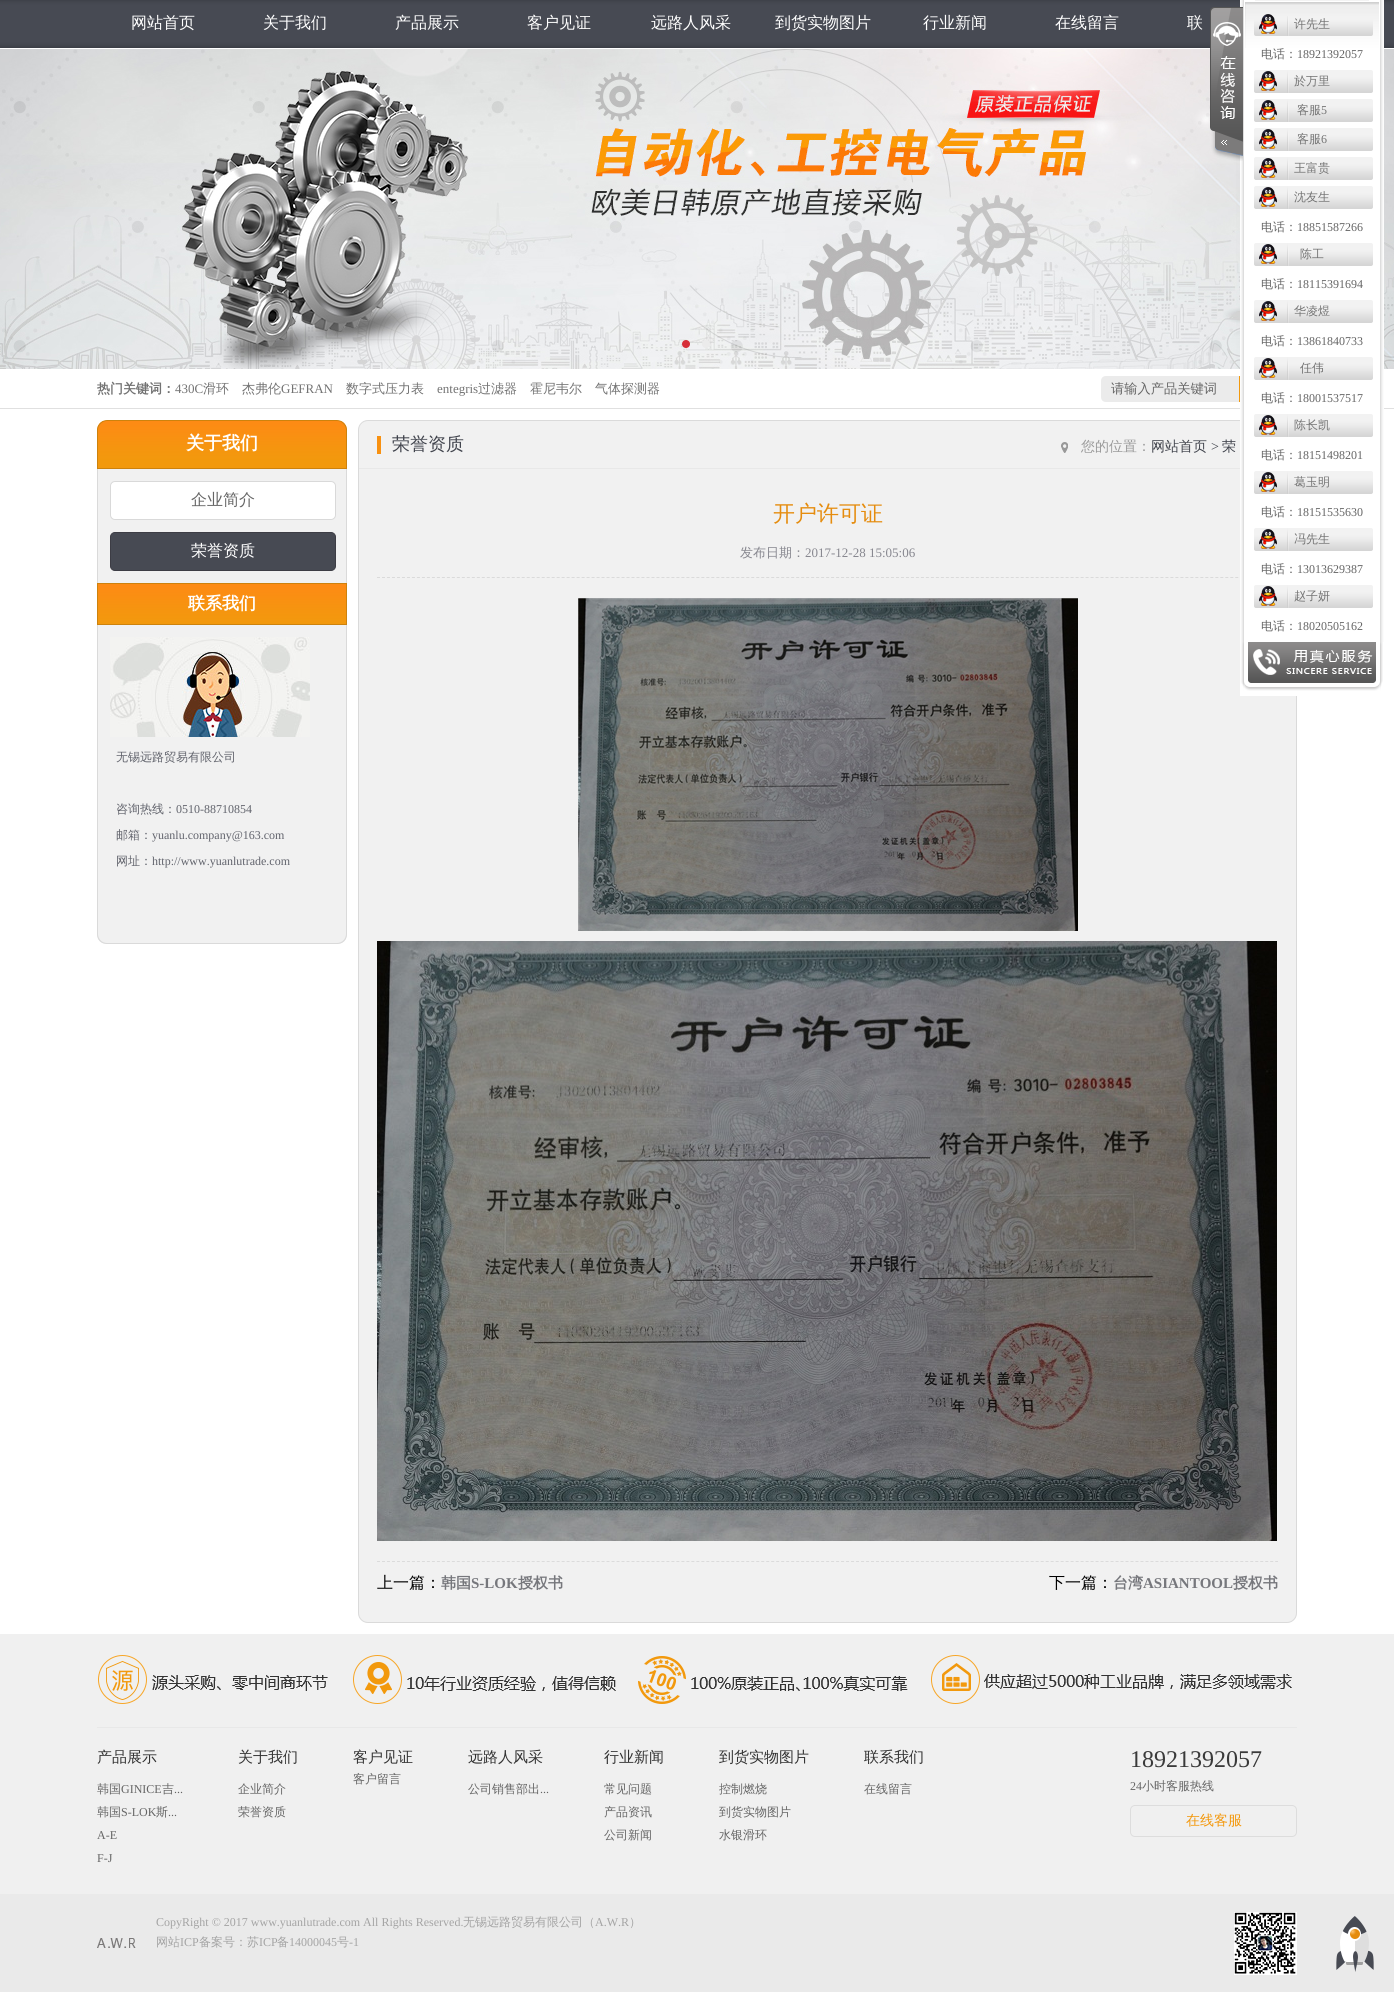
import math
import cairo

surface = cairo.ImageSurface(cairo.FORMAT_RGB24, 1394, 1992)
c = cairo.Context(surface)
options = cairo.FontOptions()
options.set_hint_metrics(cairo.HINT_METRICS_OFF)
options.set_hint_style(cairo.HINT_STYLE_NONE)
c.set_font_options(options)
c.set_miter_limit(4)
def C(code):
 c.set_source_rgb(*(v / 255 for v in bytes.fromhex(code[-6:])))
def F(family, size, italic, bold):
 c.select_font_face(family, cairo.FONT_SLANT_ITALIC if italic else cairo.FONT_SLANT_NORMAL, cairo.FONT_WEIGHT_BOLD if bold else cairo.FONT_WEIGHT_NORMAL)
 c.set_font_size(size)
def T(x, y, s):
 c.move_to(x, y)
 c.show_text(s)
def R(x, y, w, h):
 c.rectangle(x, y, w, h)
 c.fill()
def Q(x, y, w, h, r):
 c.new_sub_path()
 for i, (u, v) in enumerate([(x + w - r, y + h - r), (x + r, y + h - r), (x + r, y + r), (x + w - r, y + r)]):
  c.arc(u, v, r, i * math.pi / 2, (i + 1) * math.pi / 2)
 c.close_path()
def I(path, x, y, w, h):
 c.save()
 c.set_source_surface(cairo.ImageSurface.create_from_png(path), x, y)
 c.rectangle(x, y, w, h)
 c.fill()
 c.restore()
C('ffffff')
c.paint()
I('1.png',0,0,1394,48)
F('WenQuanYi Zen Hei Medium',16,0,0)
C('ffffff')
T(131,28,'网站首页')
T(263,28,'关于我们')
T(395,28,'产品展示')
T(527,28,'客户见证')
T(651,28,'远路人风采')
T(775,28,'到货实物图片')
T(923,28,'行业新闻')
T(1055,28,'在线留言')
T(1187,28,'联')
I('2.png',0,49,1394,320)
I('3.png',682,340,8,8)
I('4.png',702,340,8,8)
C('e0e0e0')
R(0,408,1394,1)
F('WenQuanYi Zen Hei',13,0,1)
C('737373')
T(97,393,'热门关键词：')
F('Liberation Serif',13,0,0)
T(175,393,'430C')
F('WenQuanYi Zen Hei Medium',13,0,0)
T(203,393,'滑环')
T(242,393,'杰弗伦')
F('Liberation Serif',13,0,0)
T(281,393,'GEFRAN')
F('WenQuanYi Zen Hei Medium',13,0,0)
T(346,393,'数字式压力表')
F('Liberation Serif',13,0,0)
T(437,393,'entegris')
F('WenQuanYi Zen Hei Medium',13,0,0)
T(478,393,'过滤器')
T(530,393,'霍尼韦尔')
T(595,393,'气体探测器')
C('ebebeb')
c.new_path()
c.move_to(1106,376)
c.line_to(1239,376)
c.line_to(1239,402)
c.line_to(1106,402)
c.curve_to(1103,402,1101,400,1101,397)
c.line_to(1101,381)
c.curve_to(1101,378,1103,376,1106,376)
c.close_path()
c.fill()
F('WenQuanYi Zen Hei Medium',13.25,0,0)
C('656565')
T(1111,393,'请输入产品关键词')
I('5.png',1239,376,1,26)
I('6.png',97,421,250,47)
c.new_path()
c.move_to(107,420.5)
c.line_to(337,420.5)
c.curve_to(342,420.5,346.5,425,346.5,430)
c.line_to(346.5,468.5)
c.line_to(97.5,468.5)
c.line_to(97.5,430)
c.curve_to(97.5,425,102,420.5,107,420.5)
c.close_path()
C('cd820d')
c.set_line_width(1)
c.stroke()
F('WenQuanYi Zen Hei',18,0,1)
C('ffffff')
T(186,449,'关于我们')
C('f1f1f1')
R(98,469,248,114)
C('dadada')
R(346,469,1,114)
R(97,469,1,114)
C('ffffff')
Q(110.5,481.5,225,38,4.5)
c.fill_preserve()
C('d9d9d9')
c.stroke()
F('WenQuanYi Zen Hei Medium',16,0,0)
C('656565')
T(191,505,'企业简介')
C('474a53')
Q(110.5,532.5,225,38,4.5)
c.fill_preserve()
C('3d3d45')
c.stroke()
C('ffffff')
T(191,556,'荣誉资质')
I('7.png',98,584,248,40)
c.rectangle(97.5,583.5,249,41)
C('cd820d')
c.stroke()
F('WenQuanYi Zen Hei',17,0,1)
C('ffffff')
T(188,609,'联系我们')
C('f1f1f1')
R(98,625,248,308)
C('dadada')
R(346,625,1,308)
R(97,625,1,308)
I('8.png',110,637,200,100)
F('WenQuanYi Zen Hei Medium',12,0,0)
C('61636c')
T(116,761,'无锡远路贸易有限公司')
T(116,813,'咨询热线：')
F('Liberation Serif',12,0,0)
T(176,813,'0510-88710854')
F('WenQuanYi Zen Hei Medium',12,0,0)
T(116,839,'邮箱：')
F('Liberation Serif',12,0,0)
T(152,839,'yuanlu.company@163.com')
F('WenQuanYi Zen Hei Medium',12,0,0)
T(116,865,'网址：')
F('Liberation Serif',12,0,0)
T(152,865,'http://www.yuanlutrade.com')
C('f1f1f1')
c.new_path()
c.move_to(97,933)
c.line_to(347,933)
c.line_to(347,934)
c.curve_to(347,939.5,342.5,944,337,944)
c.line_to(107,944)
c.curve_to(101.5,944,97,939.5,97,934)
c.close_path()
c.fill()
C('dadada')
c.set_fill_rule(cairo.FILL_RULE_EVEN_ODD)
c.new_path()
c.move_to(97,933)
c.line_to(347,933)
c.line_to(347,934)
c.curve_to(347,940,343,944,337,944)
c.line_to(107,944)
c.curve_to(101,944,97,940,97,934)
c.close_path()
c.move_to(98,933)
c.line_to(346,933)
c.line_to(346,934)
c.curve_to(346,939,342,943,337,943)
c.line_to(107,943)
c.curve_to(102,943,98,939,98,934)
c.close_path()
c.fill()
C('f1f1f1')
Q(358.5,420.5,938,1202,9.5)
c.fill_preserve()
C('dadada')
c.stroke()
C('e8e8e8')
R(359,468,881,1)
C('f89111')
R(377,436,4,18)
F('WenQuanYi Zen Hei Medium',18,0,0)
C('41444d')
T(392,450,'荣誉资质')
I('9.png',1061,442,7,11)
F('WenQuanYi Zen Hei Medium',14,0,0)
C('9a9a9a')
T(1081,451,'您的位置：')
C('41444d')
T(1151,451,'网站首页')
F('Liberation Serif',14,0,0)
T(1211,451,'>')
F('WenQuanYi Zen Hei Medium',14,0,0)
T(1222,451,'荣')
F('WenQuanYi Zen Hei Medium',22,0,0)
C('e58c0e')
T(773,521,'开户许可证')
c.new_path()
c.move_to(377,577.5)
c.line_to(1278,577.5)
C('dadada')
c.set_dash([3,1.99])
c.stroke()
F('WenQuanYi Zen Hei Medium',13,0,0)
C('87878f')
T(740,557,'发布日期：')
F('Liberation Serif',13,0,0)
T(805,557,'2017-12-28 15:05:06')
I('10.png',578,598,500,333)
I('11.png',377,941,900,600)
c.new_path()
c.move_to(377,1561.5)
c.line_to(1278,1561.5)
C('dbdbdb')
c.stroke()
F('WenQuanYi Zen Hei Medium',16,0,0)
C('000000')
T(377,1588,'上一篇：')
F('WenQuanYi Zen Hei',15,0,1)
C('76777c')
T(441,1588,'韩国')
F('Liberation Serif',15,0,1)
T(471,1588,'S-LOK')
F('WenQuanYi Zen Hei',15,0,1)
T(518,1588,'授权书')
F('WenQuanYi Zen Hei Medium',16,0,0)
C('000000')
T(1049,1588,'下一篇：')
F('WenQuanYi Zen Hei',15,0,1)
C('76777c')
T(1113,1588,'台湾')
F('Liberation Serif',15,0,1)
T(1143,1588,'ASIANTOOL')
F('WenQuanYi Zen Hei',15,0,1)
T(1233,1588,'授权书')
C('f0f0f0')
R(0,1634,1394,260)
C('e8e8e8')
R(97,1727,1200,1)
I('12.png',98,1655,1194,49)
F('WenQuanYi Zen Hei Medium',15,0,0)
C('323232')
T(97,1762,'产品展示')
F('WenQuanYi Zen Hei Medium',12,0,0)
C('656565')
T(97,1793,'韩国')
F('Liberation Serif',12,0,0)
T(121,1793,'GINICE')
F('WenQuanYi Zen Hei Medium',12,0,0)
T(162,1793,'吉')
F('Liberation Serif',12,0,0)
T(174,1793,'...')
F('WenQuanYi Zen Hei Medium',12,0,0)
T(97,1816,'韩国')
F('Liberation Serif',12,0,0)
T(121,1816,'S-LOK')
F('WenQuanYi Zen Hei Medium',12,0,0)
T(156,1816,'斯')
F('Liberation Serif',12,0,0)
T(168,1816,'...')
T(97,1839,'A-E')
T(97,1862,'F-J')
F('WenQuanYi Zen Hei Medium',15,0,0)
C('323232')
T(238,1762,'关于我们')
F('WenQuanYi Zen Hei Medium',12,0,0)
C('656565')
T(238,1793,'企业简介')
T(238,1816,'荣誉资质')
F('WenQuanYi Zen Hei Medium',15,0,0)
C('323232')
T(353,1762,'客户见证')
F('WenQuanYi Zen Hei Medium',12,0,0)
C('656565')
T(353,1783,'客户留言')
F('WenQuanYi Zen Hei Medium',15,0,0)
C('323232')
T(468,1762,'远路人风采')
F('WenQuanYi Zen Hei Medium',12,0,0)
C('656565')
T(468,1793,'公司销售部出')
F('Liberation Serif',12,0,0)
T(540,1793,'...')
F('WenQuanYi Zen Hei Medium',15,0,0)
C('323232')
T(604,1762,'行业新闻')
F('WenQuanYi Zen Hei Medium',12,0,0)
C('656565')
T(604,1793,'常见问题')
T(604,1816,'产品资讯')
T(604,1839,'公司新闻')
F('WenQuanYi Zen Hei Medium',15,0,0)
C('323232')
T(719,1762,'到货实物图片')
F('WenQuanYi Zen Hei Medium',12,0,0)
C('656565')
T(719,1793,'控制燃烧')
T(719,1816,'到货实物图片')
T(719,1839,'水银滑环')
F('WenQuanYi Zen Hei Medium',15,0,0)
C('323232')
T(864,1762,'联系我们')
F('WenQuanYi Zen Hei Medium',12,0,0)
C('656565')
T(864,1793,'在线留言')
F('Liberation Serif',24,0,0)
C('3a3a3a')
T(1130,1767,'18921392057')
F('Liberation Serif',12,0,0)
C('656565')
T(1130,1790,'24')
F('WenQuanYi Zen Hei Medium',12,0,0)
T(1142,1790,'小时客服热线')
Q(1130.5,1805.5,166,31,4.5)
C('dddddd')
c.set_dash([])
c.stroke()
F('WenQuanYi Zen Hei Medium',14,0,0)
C('f3980c')
T(1186,1825,'在线客服')
C('eaeaea')
R(0,1894,1394,98)
I('13.png',97,1938,39,10)
F('Liberation Serif',12,0,0)
C('a4a4a4')
T(156,1926,'CopyRight © 2017 www.yuanlutrade.com All Rights Reserved.')
F('WenQuanYi Zen Hei Medium',12,0,0)
T(463,1926,'无锡远路贸易有限公司（')
F('Liberation Serif',12,0,0)
T(595,1926,'A.W.R')
F('WenQuanYi Zen Hei Medium',12,0,0)
T(629,1926,'）')
T(156,1946,'网站')
F('Liberation Serif',12,0,0)
T(180,1946,'ICP')
F('WenQuanYi Zen Hei Medium',12,0,0)
T(199,1946,'备案号：苏')
F('Liberation Serif',12,0,0)
T(259,1946,'ICP')
F('WenQuanYi Zen Hei Medium',12,0,0)
T(277,1946,'备')
F('Liberation Serif',12,0,0)
T(289,1946,'14000045')
F('WenQuanYi Zen Hei Medium',12,0,0)
T(337,1946,'号')
F('Liberation Serif',12,0,0)
T(349,1946,'-1')
I('14.png',1234,1912,63,63)
I('16.png',1240,0,144,642)
I('15.png',1210,7,33,154)
C('f3f3f3')
R(1255,0,114,1)
I('17.png',1245,2,134,46)
I('19.png',1254,16,119,20)
I('18.png',1259,14,18,20)
F('WenQuanYi Zen Hei Medium',12,0,0)
C('737373')
T(1294,28,'许先生')
C('656565')
T(1261,58,'电话：')
F('Liberation Serif',12,0,0)
T(1297,58,'18921392057')
I('21.png',1254,70,119,23)
I('20.png',1259,71,18,20)
F('WenQuanYi Zen Hei Medium',12,0,0)
C('737373')
T(1294,85,'於万里')
I('21.png',1254,99,119,23)
I('20.png',1259,100,18,20)
T(1297,114,'客服')
F('Liberation Serif',12,0,0)
T(1321,114,'5')
I('21.png',1254,128,119,23)
I('20.png',1259,129,18,20)
F('WenQuanYi Zen Hei Medium',12,0,0)
T(1297,143,'客服')
F('Liberation Serif',12,0,0)
T(1321,143,'6')
I('21.png',1254,157,119,23)
I('20.png',1259,158,18,20)
F('WenQuanYi Zen Hei Medium',12,0,0)
T(1294,172,'王富贵')
I('21.png',1254,186,119,23)
I('20.png',1259,187,18,20)
T(1294,201,'沈友生')
C('656565')
T(1261,231,'电话：')
F('Liberation Serif',12,0,0)
T(1297,231,'18851587266')
I('21.png',1254,243,119,23)
I('20.png',1259,244,18,20)
F('WenQuanYi Zen Hei Medium',12,0,0)
C('737373')
T(1300,258,'陈工')
C('656565')
T(1261,288,'电话：')
F('Liberation Serif',12,0,0)
T(1297,288,'18115391694')
I('21.png',1254,300,119,23)
I('20.png',1259,301,18,20)
F('WenQuanYi Zen Hei Medium',12,0,0)
C('737373')
T(1294,315,'华凌煜')
C('656565')
T(1261,345,'电话：')
F('Liberation Serif',12,0,0)
T(1297,345,'13861840733')
I('21.png',1254,357,119,23)
I('20.png',1259,358,18,20)
F('WenQuanYi Zen Hei Medium',12,0,0)
C('737373')
T(1300,372,'任伟')
C('656565')
T(1261,402,'电话：')
F('Liberation Serif',12,0,0)
T(1297,402,'18001537517')
I('21.png',1254,414,119,23)
I('20.png',1259,415,18,20)
F('WenQuanYi Zen Hei Medium',12,0,0)
C('737373')
T(1294,429,'陈长凯')
C('656565')
T(1261,459,'电话：')
F('Liberation Serif',12,0,0)
T(1297,459,'18151498201')
I('21.png',1254,471,119,23)
I('20.png',1259,472,18,20)
F('WenQuanYi Zen Hei Medium',12,0,0)
C('737373')
T(1294,486,'葛玉明')
C('656565')
T(1261,516,'电话：')
F('Liberation Serif',12,0,0)
T(1297,516,'18151535630')
I('21.png',1254,528,119,23)
I('20.png',1259,529,18,20)
F('WenQuanYi Zen Hei Medium',12,0,0)
C('737373')
T(1294,543,'冯先生')
C('656565')
T(1261,573,'电话：')
F('Liberation Serif',12,0,0)
T(1297,573,'13013629387')
I('21.png',1254,585,119,23)
I('20.png',1259,586,18,20)
F('WenQuanYi Zen Hei Medium',12,0,0)
C('737373')
T(1294,600,'赵子妍')
C('656565')
T(1261,630,'电话：')
F('Liberation Serif',12,0,0)
T(1297,630,'18020505162')
I('22.png',1240,642,143,54)
I('23.png',1336,1916,38,56)
surface.write_to_png('o.png')
